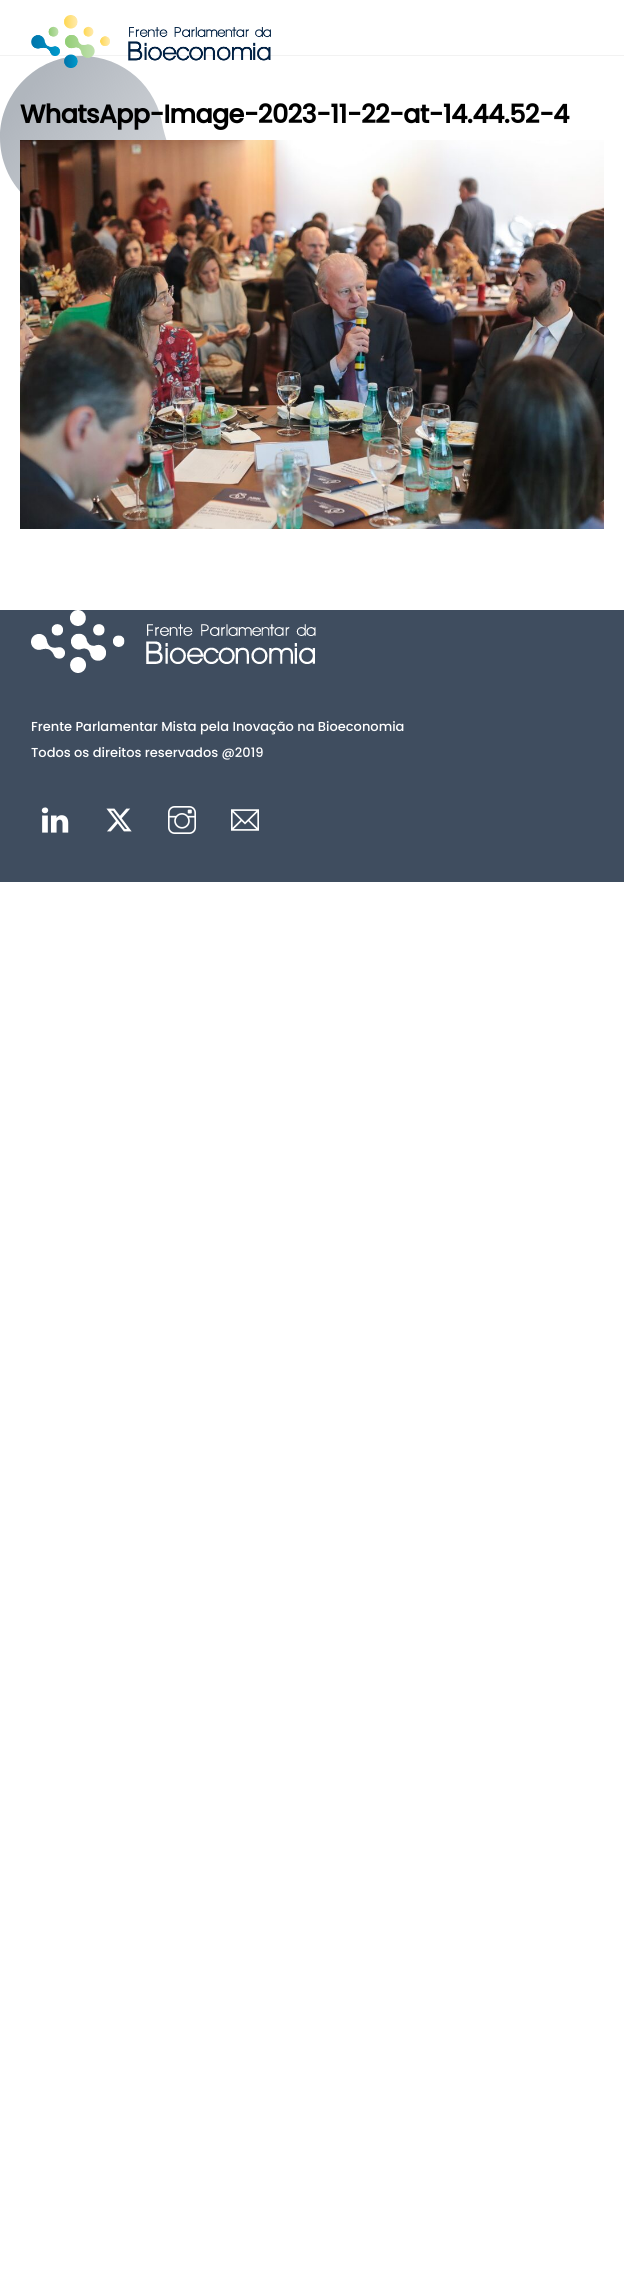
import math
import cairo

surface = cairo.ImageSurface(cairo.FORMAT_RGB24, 624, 2272)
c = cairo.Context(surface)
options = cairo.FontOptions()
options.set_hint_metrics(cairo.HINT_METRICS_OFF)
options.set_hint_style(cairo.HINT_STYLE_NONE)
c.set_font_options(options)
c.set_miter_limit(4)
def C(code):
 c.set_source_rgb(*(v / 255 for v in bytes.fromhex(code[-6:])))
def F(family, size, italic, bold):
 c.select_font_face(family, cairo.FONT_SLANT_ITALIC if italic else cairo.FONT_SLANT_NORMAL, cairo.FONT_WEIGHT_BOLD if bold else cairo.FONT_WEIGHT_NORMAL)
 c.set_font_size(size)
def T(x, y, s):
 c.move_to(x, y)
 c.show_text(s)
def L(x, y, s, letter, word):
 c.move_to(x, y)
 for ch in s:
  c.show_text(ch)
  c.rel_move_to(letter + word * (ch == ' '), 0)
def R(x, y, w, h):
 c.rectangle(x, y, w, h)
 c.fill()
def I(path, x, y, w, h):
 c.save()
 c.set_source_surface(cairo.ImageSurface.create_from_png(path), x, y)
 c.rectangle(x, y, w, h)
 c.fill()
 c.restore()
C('ffffff')
c.paint()
C('f2f2f2')
R(0,55,624,1)
I('2.png',0,56,167,136)
I('1.png',31,15,240,53)
F('Poppins',25.6,0,1)
C('000000')
L(20,123,'WhatsApp-Image-2023-11-22-at-14.44.52-4',-.75,0)
I('3.png',20,140,584,389)
C('3f4d5f')
R(0,610,624,272)
I('4.png',31,610,285,63)
F('Poppins Medium',13,0,0)
C('ffffff')
T(31,731,'Frente Parlamentar Mista pela Inovação na Bioeconomia')
T(31,757,'Todos os direitos reservados @2019')
I('5.png',41,807,28,26)
I('6.png',106,808,26,24)
I('7.png',168,806,28,28)
I('8.png',231,809,28,22)
surface.write_to_png('o.png')
